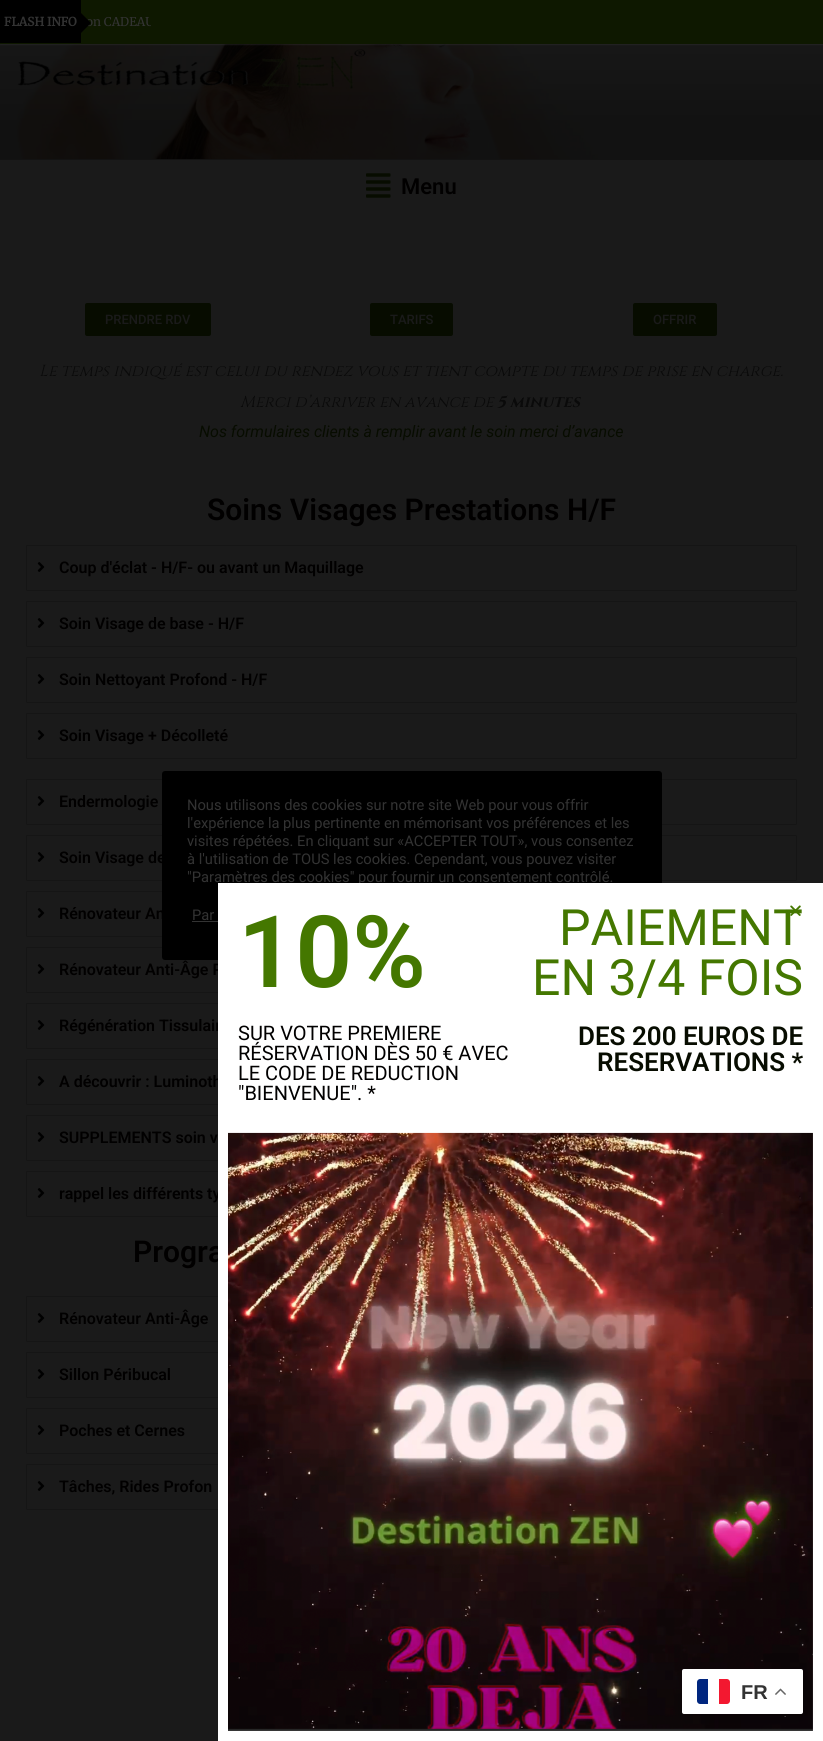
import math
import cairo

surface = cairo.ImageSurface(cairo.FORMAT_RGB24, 823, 1741)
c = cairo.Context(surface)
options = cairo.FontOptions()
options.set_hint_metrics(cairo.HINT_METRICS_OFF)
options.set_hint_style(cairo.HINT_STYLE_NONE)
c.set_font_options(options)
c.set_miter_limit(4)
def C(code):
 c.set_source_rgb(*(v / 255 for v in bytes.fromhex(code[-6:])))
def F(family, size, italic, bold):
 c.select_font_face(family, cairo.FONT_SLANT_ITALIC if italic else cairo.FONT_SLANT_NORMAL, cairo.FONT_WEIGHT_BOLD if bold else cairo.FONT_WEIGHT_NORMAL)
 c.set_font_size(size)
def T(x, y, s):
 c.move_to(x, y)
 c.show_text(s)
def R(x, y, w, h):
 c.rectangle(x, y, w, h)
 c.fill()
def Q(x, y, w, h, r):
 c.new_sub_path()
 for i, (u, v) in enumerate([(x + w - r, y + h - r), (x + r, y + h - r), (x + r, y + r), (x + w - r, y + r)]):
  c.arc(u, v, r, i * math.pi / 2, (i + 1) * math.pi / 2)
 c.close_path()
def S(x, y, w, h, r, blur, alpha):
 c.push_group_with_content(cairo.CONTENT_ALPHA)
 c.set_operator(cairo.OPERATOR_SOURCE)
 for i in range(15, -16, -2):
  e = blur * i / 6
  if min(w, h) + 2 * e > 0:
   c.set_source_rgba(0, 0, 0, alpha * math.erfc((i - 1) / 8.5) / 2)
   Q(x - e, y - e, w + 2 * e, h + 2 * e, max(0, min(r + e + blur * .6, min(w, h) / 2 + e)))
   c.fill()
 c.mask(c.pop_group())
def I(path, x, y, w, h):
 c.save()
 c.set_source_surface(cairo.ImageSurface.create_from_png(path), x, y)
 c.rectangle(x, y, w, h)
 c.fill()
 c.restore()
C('1a1a1a')
c.paint()
I('1.png',0,44,598,115)
gradient = cairo.LinearGradient(412,0,412,160)
gradient.add_color_stop_rgba(0,0,0,0,0)
gradient.add_color_stop_rgba(.75,0,0,0,.3)
gradient.add_color_stop_rgba(1,0,0,0,.3)
c.set_source(gradient)
R(0,44,823,116)
C('333333')
S(0,0,823,44,0,1,1)
C('0e1800')
R(0,0,823,44)
C('000000')
R(0,0,81,43)
F('Merriweather',12,0,1)
C('333333')
T(4,26,'FLASH INFO')
F('Merriweather Light',12,0,0)
T(86,26,'on CADEAU')
C('000000')
c.new_path()
c.move_to(81,33)
c.line_to(81,13)
c.line_to(91,23)
c.close_path()
c.fill()
C('0e1800')
R(151,17,3,9)
I('2.png',17,49,349,40)
I('3.png',366,173,25,25)
F('Roboto SemiBold',22,0,0)
C('010000')
T(401,194,'Menu')
C('070c00')
Q(85,303,126,33,2)
c.fill()
F('Roboto Medium',13,0,0)
C('1a1a1a')
T(105,324,'PRENDRE RDV')
C('070c00')
Q(370,303,83,33,2)
c.fill()
C('1a1a1a')
T(390,324,'TARIFS')
C('070c00')
Q(633,303,84,33,2)
c.fill()
C('1a1a1a')
T(653,324,'OFFRIR')
F('Cinzel',16,1,0)
C('0a0a0a')
T(39,376,'Le temps indiqué est celui du rendez vous et tient compte du temps de prise en charge.')
T(240,407,'Merci d’arriver en avance de')
F('Cinzel',16,1,1)
T(497,407,'5 minutes')
F('Roboto',16,1,0)
C('070c00')
T(199,437,'Nos formulaires clients à remplir avant le soin merci d’avance')
F('Roboto SemiBold',30,0,0)
C('010000')
T(207,520,'Soins Visages Prestations H/F')
Q(26.5,545.5,770,45,.5)
C('151515')
c.set_line_width(1)
c.stroke()
I('4.png',37,562,8,10)
F('Roboto SemiBold',16,0,0)
C('010000')
T(59,573,'Coup d\'éclat - H/F- ou avant un Maquillage')
Q(26.5,601.5,770,45,.5)
C('151515')
c.stroke()
I('4.png',37,618,8,10)
C('010000')
T(59,629,'Soin Visage de base - H/F')
Q(26.5,657.5,770,45,.5)
C('151515')
c.stroke()
I('4.png',37,674,8,10)
C('010000')
T(59,685,'Soin Nettoyant Profond - H/F')
Q(26.5,713.5,770,45,.5)
C('151515')
c.stroke()
I('4.png',37,730,8,10)
C('010000')
T(59,741,'Soin Visage + Décolleté')
Q(26.5,779.5,770,45,.5)
C('151515')
c.stroke()
I('4.png',37,796,8,10)
C('010000')
T(59,807,'Endermologie')
Q(26.5,835.5,770,45,.5)
C('151515')
c.stroke()
I('4.png',37,852,8,10)
C('010000')
T(59,863,'Soin Visage de')
Q(26.5,891.5,770,45,.5)
C('151515')
c.stroke()
I('4.png',37,908,8,10)
C('010000')
T(59,919,'Rénovateur An')
Q(26.5,947.5,770,45,.5)
C('151515')
c.stroke()
I('4.png',37,964,8,10)
C('010000')
T(59,975,'Rénovateur Anti-Âge P')
Q(26.5,1003.5,770,45,.5)
C('151515')
c.stroke()
I('4.png',37,1020,8,10)
C('010000')
T(59,1031,'Régénération Tissulair')
Q(26.5,1059.5,770,45,.5)
C('151515')
c.stroke()
I('4.png',37,1076,8,10)
C('010000')
T(59,1087,'A découvrir : Luminoth')
Q(26.5,1115.5,770,45,.5)
C('151515')
c.stroke()
I('4.png',37,1132,8,10)
C('010000')
T(59,1143,'SUPPLEMENTS soin v')
Q(26.5,1171.5,770,45,.5)
C('151515')
c.stroke()
I('4.png',37,1188,8,10)
C('010000')
T(59,1199,'rappel les différents ty')
F('Roboto SemiBold',30,0,0)
T(133,1262,'Progra')
Q(26.5,1296.5,770,45,.5)
C('151515')
c.stroke()
I('4.png',37,1313,8,10)
F('Roboto SemiBold',16,0,0)
C('010000')
T(59,1324,'Rénovateur Anti-Âge')
Q(26.5,1352.5,770,45,.5)
C('151515')
c.stroke()
I('4.png',37,1369,8,10)
C('010000')
T(59,1380,'Sillon Péribucal')
Q(26.5,1408.5,770,45,.5)
C('151515')
c.stroke()
I('4.png',37,1425,8,10)
C('010000')
T(59,1436,'Poches et Cernes')
Q(26.5,1464.5,770,45,.5)
C('151515')
c.stroke()
I('4.png',37,1481,8,10)
C('010000')
T(59,1492,'Tâches, Rides Profon')
C('000000')
Q(162,771,500,189,3)
c.fill()
F('Roboto',14.7,0,0)
C('333333')
T(187,810,'Nous utilisons des cookies sur notre site Web pour vous offrir')
T(187,828,'l\'expérience la plus pertinente en mémorisant vos préférences et les')
T(187,846,'visites répétées. En cliquant sur «ACCEPTER TOUT», vous consentez')
T(187,864,'à l\'utilisation de TOUS les cookies. Cependant, vous pouvez visiter')
T(187,882,'"Paramètres des cookies" pour fournir un consentement contrôlé.')
T(192,920,'Par')
R(192,921,26,1)
C('ffffff')
R(218,883,605,858)
F('Roboto',50,0,0)
C('447700')
T(559,945,'PAIEMENT')
I('5.png',790,905,11,11)
F('Roboto SemiBold',100,0,0)
T(238,987,'10%')
F('Roboto',20,0,0)
C('010000')
T(238,1040,'SUR VOTRE PREMIERE')
T(238,1060,'RÉSERVATION DÈS 50 € AVEC')
T(238,1080,'LE CODE DE REDUCTION')
T(238,1100,'"BIENVENUE". *')
F('Roboto',50,0,0)
C('447700')
T(532,995,'EN 3/4 FOIS')
F('Roboto SemiBold',26,0,0)
C('070c00')
T(578,1045,'DES 200 EUROS DE')
T(597,1071,'RESERVATIONS *')
I('6.png',228,1132,585,599)
C('000000')
S(682,1674,121,45,2,7.5,.15)
C('ffffff')
Q(682,1669,121,45,2)
c.fill()
C('00267f')
c.new_path()
c.move_to(700,1679)
c.line_to(708,1679)
c.line_to(708,1704)
c.line_to(700,1704)
c.curve_to(698.5,1704,697,1702.5,697,1701)
c.line_to(697,1682)
c.curve_to(697,1680.5,698.5,1679,700,1679)
c.close_path()
c.fill()
C('f31830')
c.new_path()
c.move_to(719,1679)
c.line_to(727,1679)
c.curve_to(728.5,1679,730,1680.5,730,1682)
c.line_to(730,1701)
c.curve_to(730,1702.5,728.5,1704,727,1704)
c.line_to(719,1704)
c.close_path()
c.fill()
F('Liberation Sans',20,0,1)
C('333333')
T(741,1699,'FR')
I('7.png',775,1688,11,7)
surface.write_to_png('o.png')
